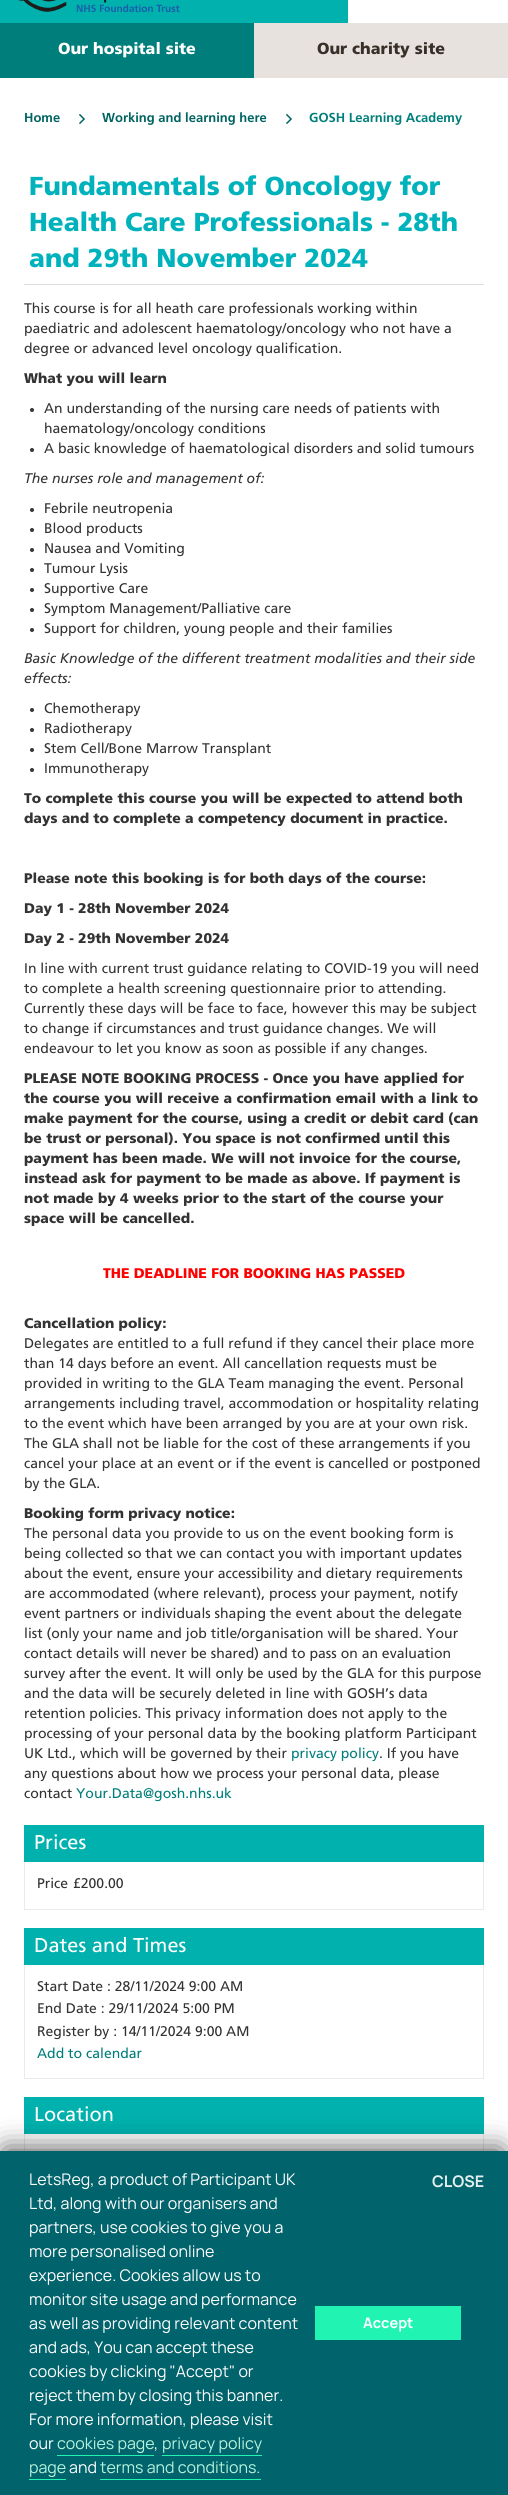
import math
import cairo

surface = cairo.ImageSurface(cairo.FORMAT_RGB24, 508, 2495)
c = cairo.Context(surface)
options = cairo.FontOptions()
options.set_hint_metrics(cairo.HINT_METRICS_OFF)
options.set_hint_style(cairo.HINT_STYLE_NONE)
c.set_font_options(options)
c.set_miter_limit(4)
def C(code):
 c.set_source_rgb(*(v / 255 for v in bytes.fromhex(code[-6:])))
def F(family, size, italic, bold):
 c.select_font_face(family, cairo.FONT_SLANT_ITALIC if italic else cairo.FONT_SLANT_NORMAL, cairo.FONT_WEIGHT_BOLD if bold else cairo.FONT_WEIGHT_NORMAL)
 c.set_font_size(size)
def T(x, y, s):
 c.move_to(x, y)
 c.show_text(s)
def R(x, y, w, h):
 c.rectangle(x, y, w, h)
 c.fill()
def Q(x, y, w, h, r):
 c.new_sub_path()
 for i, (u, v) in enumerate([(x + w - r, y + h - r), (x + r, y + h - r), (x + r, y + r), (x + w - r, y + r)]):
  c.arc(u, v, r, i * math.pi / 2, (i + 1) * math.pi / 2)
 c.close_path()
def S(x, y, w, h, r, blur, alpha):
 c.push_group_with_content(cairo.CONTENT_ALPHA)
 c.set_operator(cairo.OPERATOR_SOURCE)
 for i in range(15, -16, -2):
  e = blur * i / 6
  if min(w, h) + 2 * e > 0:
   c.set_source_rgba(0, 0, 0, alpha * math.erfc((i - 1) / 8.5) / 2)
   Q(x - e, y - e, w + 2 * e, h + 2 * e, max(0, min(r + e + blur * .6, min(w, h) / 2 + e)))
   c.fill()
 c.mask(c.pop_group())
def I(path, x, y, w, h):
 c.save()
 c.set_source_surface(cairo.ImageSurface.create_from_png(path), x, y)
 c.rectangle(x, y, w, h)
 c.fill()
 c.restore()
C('00b1ad')
c.paint()
I('1.png',18,0,162,12)
C('ffffff')
R(348,0,160,23)
C('007e7b')
R(0,23,254,55)
F('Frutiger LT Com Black',16,0,0)
C('ffffff')
T(58,54,'Our hospital site')
C('e7e2de')
R(254,23,254,55)
C('382f28')
T(317,54,'Our charity site')
C('ffffff')
R(0,78,508,2073)
F('Frutiger LT Com',13,0,1)
C('006462')
T(24,122,'Home')
I('2.png',79,113,6,11)
T(102,122,'Working and learning here')
I('2.png',286,113,6,11)
C('007e7b')
T(309,122,'GOSH Learning Academy')
C('e2dddb')
R(24,284,460,1)
F('Frutiger LT Com Black',26,0,0)
C('00b2bb')
T(29,195,'Fundamentals of Oncology for')
T(29,231,'Health Care Professionals - 28th')
T(29,267,'and 29th November 2024')
F('Frutiger LT Com',14,0,0)
C('333333')
T(24,313,'This course is for all heath care professionals working within')
T(24,333,'paediatric and adolescent haematology/oncology who not have a')
T(24,353,'degree or advanced level oncology qualification.')
F('Frutiger LT Com Black',14,0,0)
T(24,383,'What you will learn')
c.new_path()
c.arc(32,410,2,0,2 * math.pi)
c.fill()
F('Frutiger LT Com',14,0,0)
T(44,413,'An understanding of the nursing care needs of patients with')
T(44,433,'haematology/oncology conditions')
c.new_path()
c.arc(32,450,2,0,2 * math.pi)
c.fill()
T(44,453,'A basic knowledge of haematological disorders and solid tumours')
F('Frutiger LT Com',14,1,0)
T(24,483,'The nurses role and management of:')
c.new_path()
c.arc(32,510,2,0,2 * math.pi)
c.fill()
F('Frutiger LT Com',14,0,0)
T(44,513,'Febrile neutropenia')
c.new_path()
c.arc(32,530,2,0,2 * math.pi)
c.fill()
T(44,533,'Blood products')
c.new_path()
c.arc(32,550,2,0,2 * math.pi)
c.fill()
T(44,553,'Nausea and Vomiting')
c.new_path()
c.arc(32,570,2,0,2 * math.pi)
c.fill()
T(44,573,'Tumour Lysis')
c.new_path()
c.arc(32,590,2,0,2 * math.pi)
c.fill()
T(44,593,'Supportive Care')
c.new_path()
c.arc(32,610,2,0,2 * math.pi)
c.fill()
T(44,613,'Symptom Management/Palliative care')
c.new_path()
c.arc(32,630,2,0,2 * math.pi)
c.fill()
T(44,633,'Support for children, young people and their families')
F('Frutiger LT Com',14,1,0)
T(24,663,'Basic Knowledge of the different treatment modalities and their side')
T(24,683,'effects:')
c.new_path()
c.arc(32,710,2,0,2 * math.pi)
c.fill()
F('Frutiger LT Com',14,0,0)
T(44,713,'Chemotherapy')
c.new_path()
c.arc(32,730,2,0,2 * math.pi)
c.fill()
T(44,733,'Radiotherapy')
c.new_path()
c.arc(32,750,2,0,2 * math.pi)
c.fill()
T(44,753,'Stem Cell/Bone Marrow Transplant')
c.new_path()
c.arc(32,770,2,0,2 * math.pi)
c.fill()
T(44,773,'Immunotherapy')
F('Frutiger LT Com Black',14,0,0)
T(24,803,'To complete this course you will be expected to attend both')
T(24,823,'days and to complete a competency document in practice.')
T(24,883,'Please note this booking is for both days of the course:')
T(24,913,'Day 1 - 28th November 2024')
T(24,943,'Day 2 - 29th November 2024')
F('Frutiger LT Com',14,0,0)
T(24,973,'In line with current trust guidance relating to COVID-19 you will need')
T(24,993,'to complete a health screening questionnaire prior to attending.')
T(24,1013,'Currently these days will be face to face, however this may be subject')
T(24,1033,'to change if circumstances and trust guidance changes. We will')
T(24,1053,'endeavour to let you know as soon as possible if any changes.')
F('Frutiger LT Com Black',14,0,0)
T(24,1083,'PLEASE NOTE BOOKING PROCESS - Once you have applied for')
T(24,1103,'the course you will receive a confirmation email with a link to')
T(24,1123,'make payment for the course, using a credit or debit card (can')
T(24,1143,'be trust or personal). You space is not confirmed until this')
T(24,1163,'payment has been made. We will not invoice for the course,')
T(24,1183,'instead ask for payment to be made as above. If payment is')
T(24,1203,'not made by 4 weeks prior to the start of the course your')
T(24,1223,'space will be cancelled.')
C('ff0000')
T(103,1278,'THE DEADLINE FOR BOOKING HAS PASSED')
C('333333')
T(24,1328,'Cancellation policy:')
F('Frutiger LT Com',14,0,0)
T(24,1348,'Delegates are entitled to')
T(191,1348,'a full refund if they cancel their place more')
T(24,1368,'than 14 days before an event. All cancellation requests must be')
T(24,1388,'provided in writing to the GLA Team managing the event. Personal')
T(24,1408,'arrangements including travel, accommodation or hospitality relating')
T(24,1428,'to the event which have been arranged by you are at your own risk.')
T(24,1448,'The GLA shall not be liable for the cost of these arrangements if you')
T(24,1468,'cancel your place at an event or if the event is cancelled or postponed')
T(24,1488,'by the GLA.')
F('Frutiger LT Com Black',14,0,0)
T(24,1518,'Booking form privacy notice:')
F('Frutiger LT Com',14,0,0)
T(24,1538,'The personal data you provide to us on the event booking form is')
T(24,1558,'being collected so that we can contact you with important updates')
T(24,1578,'about the event, ensure your accessibility and dietary requirements')
T(24,1598,'are accommodated (where relevant), process your payment, notify')
T(24,1618,'event partners or individuals shaping the event about the delegate')
T(24,1638,'list (only your name and job title/organisation will be shared. Your')
T(24,1658,'contact details will never be shared) and to pass on an evaluation')
T(24,1678,'survey after the event. It will only be used by the GLA for this purpose')
T(24,1698,'and the data will be securely deleted in line with GOSH’s data')
T(24,1718,'retention policies. This privacy information does not apply to the')
T(24,1738,'processing of your personal data by the booking platform Participant')
T(24,1758,'UK Ltd., which will be governed by their')
C('007e7b')
T(291,1758,'privacy policy')
C('333333')
T(379,1758,'. If you have')
T(24,1778,'any questions about how we process your personal data, please')
T(24,1798,'contact')
C('007e7b')
T(76,1798,'Your.Data@gosh.nhs.uk')
C('00b1ad')
R(24,1825,460,37)
F('Frutiger LT Com',20,0,0)
C('ffffff')
T(34,1849,'Prices')
C('eaeaea')
R(483,1862,1,48)
R(24,1909,460,1)
R(24,1862,1,48)
F('Frutiger LT Com',14,0,0)
C('333333')
T(37,1888,'Price')
T(73,1888,'£200.00')
C('00b1ad')
R(24,1928,460,37)
F('Frutiger LT Com',20,0,0)
C('ffffff')
T(34,1952,'Dates and Times')
C('eaeaea')
R(483,1965,1,114)
R(24,2078,460,1)
R(24,1965,1,114)
F('Frutiger LT Com',14,0,0)
C('333333')
T(37,1991,'Start Date : 28/11/2024 9:00 AM')
T(37,2013,'End Date : 29/11/2024 5:00 PM')
T(37,2036,'Register by : 14/11/2024 9:00 AM')
C('007e7b')
T(37,2058,'Add to calendar')
C('00b1ad')
R(24,2097,460,37)
F('Frutiger LT Com',20,0,0)
C('ffffff')
T(34,2121,'Location')
C('eaeaea')
R(483,2134,1,17)
R(24,2134,1,17)
C('000000')
S(5,2151,496,332,0,14.5,.75)
C('01636b')
R(0,2151,508,344)
F('Manrope',16,0,0)
C('ffffff')
T(29,2185,'LetsReg, a product of Participant UK')
T(29,2209,'Ltd, along with our organisers and')
T(29,2233,'partners, use cookies to give you a')
T(29,2257,'more personalised online')
T(29,2281,'experience. Cookies allow us to')
T(29,2305,'monitor site usage and performance')
T(29,2329,'as well as providing relevant content')
T(29,2353,'and ads, You can accept these')
T(29,2377,'cookies by clicking "Accept" or')
T(29,2401,'reject them by closing this banner.')
T(29,2425,'For more information, please visit')
T(29,2449,'our')
C('b4f3dc')
T(57,2449,'cookies page')
C('21f3b3')
R(57,2455,97,1)
C('ffffff')
T(154,2449,',')
C('b4f3dc')
T(162,2449,'privacy policy')
C('21f3b3')
R(162,2455,100,1)
C('b4f3dc')
T(29,2473,'page')
C('21f3b3')
R(29,2479,37,1)
C('ffffff')
T(69,2473,'and')
C('b4f3dc')
T(100,2473,'terms and conditions.')
C('21f3b3')
R(100,2479,161,1)
F('Manrope',16,0,1)
C('e6eff0')
T(432,2187,'CLOSE')
C('21f3b3')
R(315,2306,146,34)
F('Manrope',14.5,0,1)
C('ffffff')
T(363,2328,'Accept')
surface.write_to_png('o.png')
